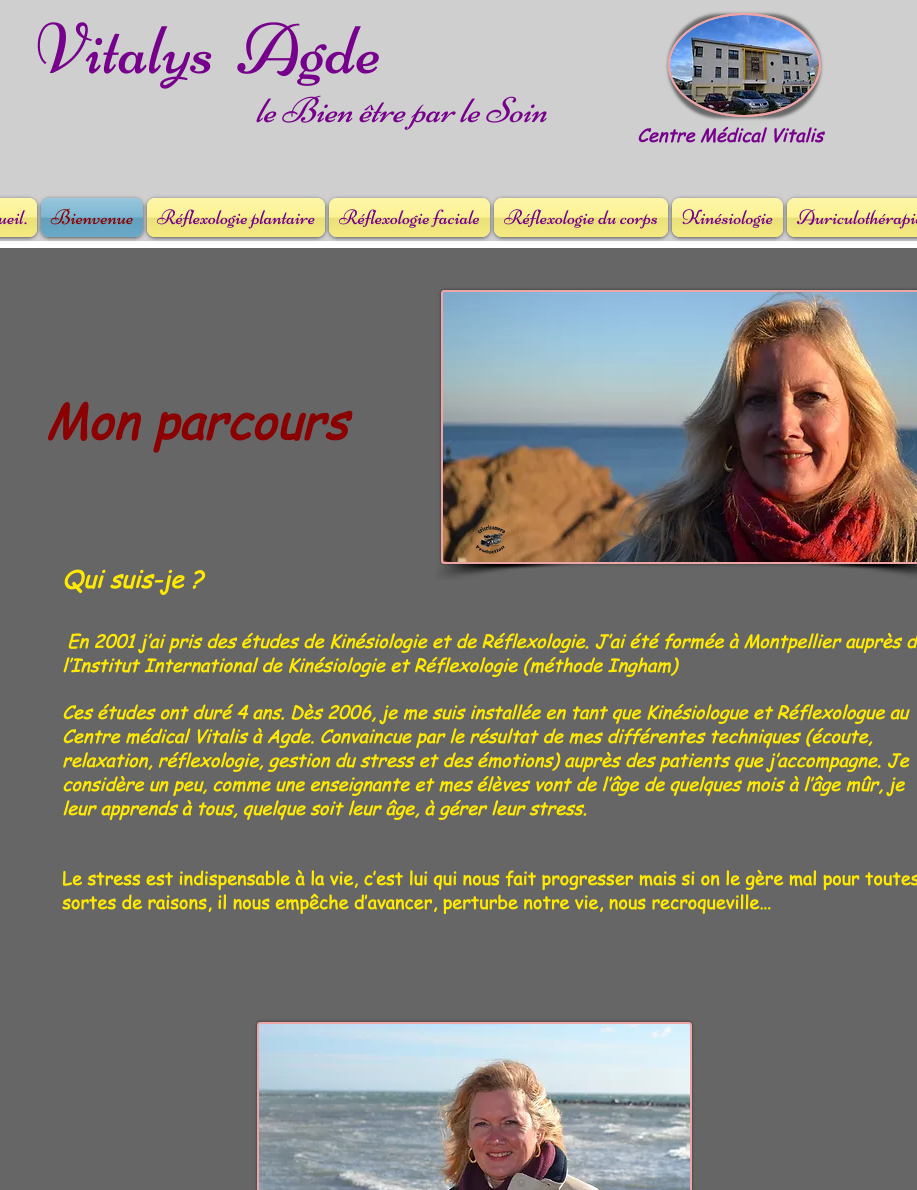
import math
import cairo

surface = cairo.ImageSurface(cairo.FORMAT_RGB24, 917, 1190)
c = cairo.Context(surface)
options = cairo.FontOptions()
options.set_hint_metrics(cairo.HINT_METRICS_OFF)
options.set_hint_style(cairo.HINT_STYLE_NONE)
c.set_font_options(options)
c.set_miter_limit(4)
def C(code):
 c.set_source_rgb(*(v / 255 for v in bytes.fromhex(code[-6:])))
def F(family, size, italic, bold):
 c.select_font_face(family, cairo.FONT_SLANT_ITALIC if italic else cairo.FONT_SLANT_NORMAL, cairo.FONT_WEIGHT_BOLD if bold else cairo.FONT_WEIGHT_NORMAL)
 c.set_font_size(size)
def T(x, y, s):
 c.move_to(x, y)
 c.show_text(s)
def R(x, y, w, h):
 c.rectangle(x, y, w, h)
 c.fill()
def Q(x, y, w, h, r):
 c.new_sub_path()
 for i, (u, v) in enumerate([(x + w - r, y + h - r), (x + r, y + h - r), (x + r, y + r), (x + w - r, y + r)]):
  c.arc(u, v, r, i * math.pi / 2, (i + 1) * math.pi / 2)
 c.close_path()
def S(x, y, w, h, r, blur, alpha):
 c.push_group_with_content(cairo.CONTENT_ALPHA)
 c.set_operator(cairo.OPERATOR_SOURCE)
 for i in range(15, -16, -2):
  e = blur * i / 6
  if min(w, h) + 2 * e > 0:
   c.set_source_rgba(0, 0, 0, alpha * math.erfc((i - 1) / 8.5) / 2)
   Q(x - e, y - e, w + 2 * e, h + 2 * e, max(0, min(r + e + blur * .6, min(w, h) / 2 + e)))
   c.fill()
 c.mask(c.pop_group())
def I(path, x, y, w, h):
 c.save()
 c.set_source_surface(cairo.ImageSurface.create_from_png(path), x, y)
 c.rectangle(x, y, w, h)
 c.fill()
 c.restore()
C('ffffff')
c.paint()
C('cfcfcf')
R(0,0,917,241)
I('1.png',37,22,342,67)
C('000000')
S(668,14,153,104,52,1.5,.5)
C('eda5a6')
c.new_path()
c.move_to(744.5,13)
c.curve_to(786.5,13,821,36.5,821,65)
c.curve_to(821,93.5,786.5,117,744.5,117)
c.curve_to(702.5,117,668,93.5,668,65)
c.curve_to(668,36.5,702.5,13,744.5,13)
c.close_path()
c.fill()
c.new_path()
c.move_to(744.5,14)
c.curve_to(786,14,820,37,820,65)
c.curve_to(820,93,786,116,744.5,116)
c.curve_to(703,116,669,93,669,65)
c.curve_to(669,37,703,14,744.5,14)
c.close_path()
c.stroke()
I('2.png',670,15,149,100)
I('3.png',256,95,291,35)
F('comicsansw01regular',18,1,1)
C('76008b')
T(637,142,'Centre Médical Vitalis')
c.save()
c.set_fill_rule(cairo.FILL_RULE_EVEN_ODD)
c.new_path()
c.move_to(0,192)
c.line_to(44,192)
c.line_to(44,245)
c.line_to(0,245)
c.close_path()
c.move_to(-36,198)
c.line_to(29,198)
c.curve_to(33.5,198,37,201.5,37,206)
c.line_to(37,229)
c.curve_to(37,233.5,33.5,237,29,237)
c.line_to(-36,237)
c.curve_to(-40.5,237,-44,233.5,-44,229)
c.line_to(-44,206)
c.curve_to(-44,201.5,-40.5,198,-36,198)
c.close_path()
c.clip()
C('000000')
S(-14,199,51,39,8,2,.6)
c.restore()
c.set_source_rgba(1,0.957,0.498,0.93)
Q(-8,198,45,39,8)
c.fill()
I('4.png',0,198,37,39)
I('5.png',0,210,27,15)
c.save()
c.set_fill_rule(cairo.FILL_RULE_EVEN_ODD)
c.new_path()
c.move_to(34,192)
c.line_to(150,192)
c.line_to(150,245)
c.line_to(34,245)
c.close_path()
c.move_to(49,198)
c.line_to(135,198)
c.curve_to(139.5,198,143,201.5,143,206)
c.line_to(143,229)
c.curve_to(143,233.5,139.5,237,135,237)
c.line_to(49,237)
c.curve_to(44.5,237,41,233.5,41,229)
c.line_to(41,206)
c.curve_to(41,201.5,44.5,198,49,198)
c.close_path()
c.clip()
C('000000')
S(41,199,102,39,8,2,.6)
c.restore()
c.set_source_rgba(0,0.533,0.796,0.48)
Q(41,198,102,39,8)
c.fill()
I('6.png',41,198,102,39)
I('7.png',50,208,83,17)
c.save()
c.set_fill_rule(cairo.FILL_RULE_EVEN_ODD)
c.new_path()
c.move_to(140,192)
c.line_to(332,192)
c.line_to(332,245)
c.line_to(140,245)
c.close_path()
c.move_to(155,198)
c.line_to(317,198)
c.curve_to(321.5,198,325,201.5,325,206)
c.line_to(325,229)
c.curve_to(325,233.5,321.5,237,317,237)
c.line_to(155,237)
c.curve_to(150.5,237,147,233.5,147,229)
c.line_to(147,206)
c.curve_to(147,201.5,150.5,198,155,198)
c.close_path()
c.clip()
C('000000')
S(147,199,178,39,8,2,.6)
c.restore()
c.set_source_rgba(1,0.957,0.498,0.93)
Q(147,198,178,39,8)
c.fill()
I('8.png',147,198,178,39)
I('9.png',157,209,158,20)
c.save()
c.set_fill_rule(cairo.FILL_RULE_EVEN_ODD)
c.new_path()
c.move_to(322,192)
c.line_to(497,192)
c.line_to(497,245)
c.line_to(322,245)
c.close_path()
c.move_to(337,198)
c.line_to(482,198)
c.curve_to(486.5,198,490,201.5,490,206)
c.line_to(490,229)
c.curve_to(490,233.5,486.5,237,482,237)
c.line_to(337,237)
c.curve_to(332.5,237,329,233.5,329,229)
c.line_to(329,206)
c.curve_to(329,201.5,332.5,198,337,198)
c.close_path()
c.clip()
C('000000')
S(329,199,161,39,8,2,.6)
c.restore()
Q(329,198,161,39,8)
c.fill()
I('10.png',329,198,161,39)
I('11.png',339,209,141,19)
c.save()
c.set_fill_rule(cairo.FILL_RULE_EVEN_ODD)
c.new_path()
c.move_to(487,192)
c.line_to(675,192)
c.line_to(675,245)
c.line_to(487,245)
c.close_path()
c.move_to(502,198)
c.line_to(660,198)
c.curve_to(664.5,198,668,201.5,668,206)
c.line_to(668,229)
c.curve_to(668,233.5,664.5,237,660,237)
c.line_to(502,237)
c.curve_to(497.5,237,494,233.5,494,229)
c.line_to(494,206)
c.curve_to(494,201.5,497.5,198,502,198)
c.close_path()
c.clip()
C('000000')
S(494,199,174,39,8,2,.6)
c.restore()
Q(494,198,174,39,8)
c.fill()
I('12.png',494,198,174,39)
I('13.png',504,209,153,20)
c.save()
c.set_fill_rule(cairo.FILL_RULE_EVEN_ODD)
c.new_path()
c.move_to(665,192)
c.line_to(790,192)
c.line_to(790,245)
c.line_to(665,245)
c.close_path()
c.move_to(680,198)
c.line_to(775,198)
c.curve_to(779.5,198,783,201.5,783,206)
c.line_to(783,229)
c.curve_to(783,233.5,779.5,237,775,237)
c.line_to(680,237)
c.curve_to(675.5,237,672,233.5,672,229)
c.line_to(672,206)
c.curve_to(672,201.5,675.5,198,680,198)
c.close_path()
c.clip()
C('000000')
S(672,199,111,39,8,2,.6)
c.restore()
Q(672,198,111,39,8)
c.fill()
I('14.png',672,198,111,39)
I('15.png',682,209,91,19)
c.save()
c.set_fill_rule(cairo.FILL_RULE_EVEN_ODD)
c.new_path()
c.move_to(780,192)
c.line_to(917,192)
c.line_to(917,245)
c.line_to(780,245)
c.close_path()
c.move_to(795,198)
c.line_to(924,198)
c.curve_to(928.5,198,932,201.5,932,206)
c.line_to(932,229)
c.curve_to(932,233.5,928.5,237,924,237)
c.line_to(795,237)
c.curve_to(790.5,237,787,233.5,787,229)
c.line_to(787,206)
c.curve_to(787,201.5,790.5,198,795,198)
c.close_path()
c.clip()
C('000000')
S(787,199,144,39,8,2,.6)
c.restore()
Q(787,198,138,39,8)
c.fill()
I('16.png',787,198,130,39)
I('17.png',796,209,121,20)
C('666666')
R(0,248,917,942)
F('comicsansw01regular',48,1,1)
C('8b0000')
T(45,439,'Mon parcours')
C('000000')
S(441,290,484,274,3,1.5,.5)
C('eda5a6')
Q(442,291,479,272,2)
c.fill_preserve()
c.stroke()
I('18.png',443,292,474,270)
I('19.png',436,564,137,16)
I('20.png',806,564,111,15)
I('21.png',476,525,30,29)
F('comicsansw01regular',24,1,1)
C('ffe900')
T(62,588,'Qui suis-je ?')
F('comicsansw01regular',18,1,1)
T(67,648,'En 2001 j’ai pris des études de Kinésiologie et de Réflexologie. J’ai été formée à Montpellier auprès d')
T(62,672,'l’Institut International de Kinésiologie et Réflexologie (méthode Ingham)')
T(62,719,'Ces études ont duré 4 ans. Dès 2006, je me suis installée en tant que Kinésiologue et Réflexologue au')
T(62,743,'Centre médical Vitalis à Agde. Convaincue par le résultat de mes différentes techniques (écoute,')
T(62,767,'relaxation, réflexologie, gestion du stress et des émotions) auprès des patients que j’accompagne. Je')
T(62,791,'considère un peu, comme une enseignante et mes élèves vont de l’âge de quelques mois à l’âge mûr, je')
T(62,815,'leur apprends à tous, quelque soit leur âge, à gérer leur stress.')
F('comicsansw01regular',18,0,1)
T(62,885,'Le stress est indispensable à la vie, c’est lui qui nous fait progresser mais si on le gère mal pour toutes')
T(62,909,'sortes de raisons, il nous empêche d’avancer, perturbe notre vie, nous recroqueville…')
C('000000')
S(257,1022,435,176,3,1.5,.5)
C('eda5a6')
Q(258,1023,433,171,2)
c.fill_preserve()
c.stroke()
I('22.png',259,1024,431,166)
surface.write_to_png('o.png')
